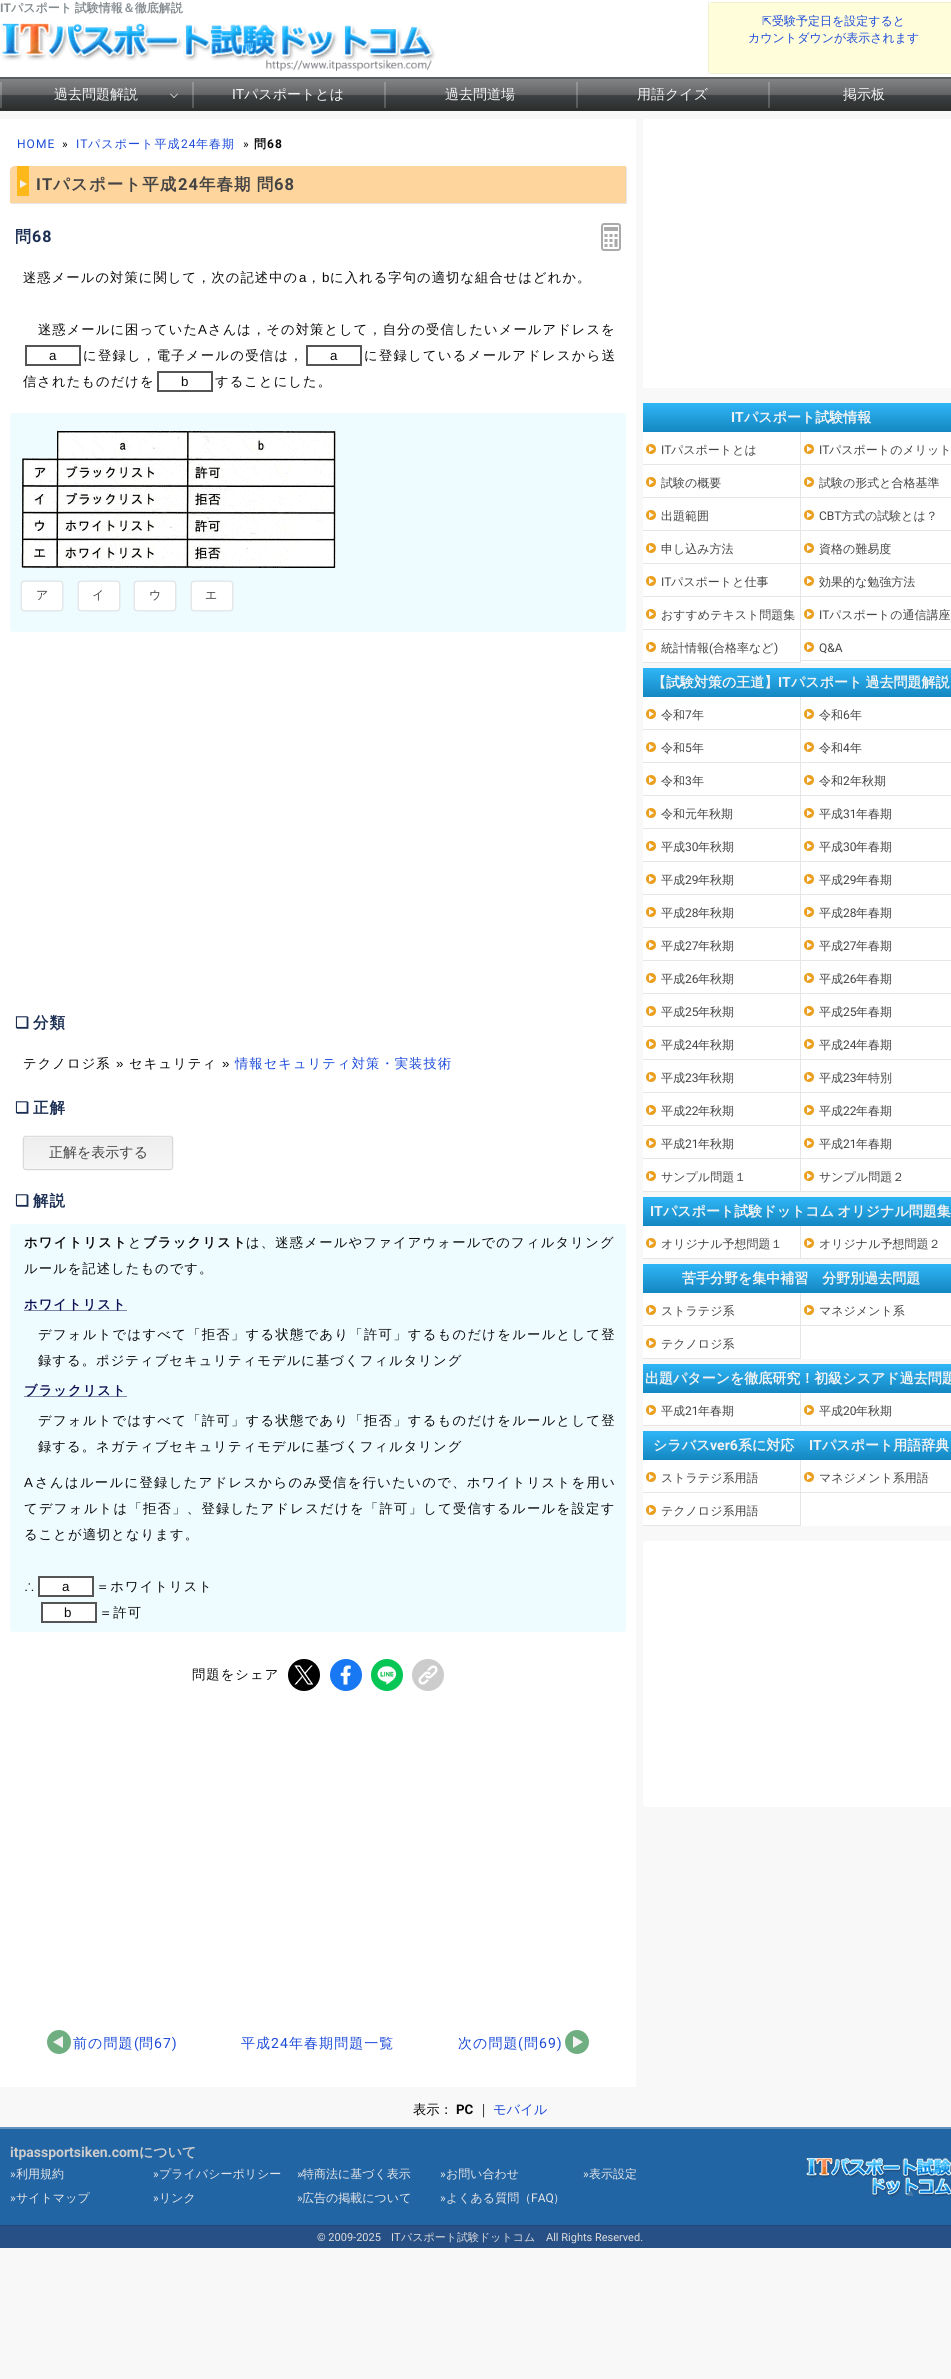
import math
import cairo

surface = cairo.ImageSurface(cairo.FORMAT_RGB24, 951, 2379)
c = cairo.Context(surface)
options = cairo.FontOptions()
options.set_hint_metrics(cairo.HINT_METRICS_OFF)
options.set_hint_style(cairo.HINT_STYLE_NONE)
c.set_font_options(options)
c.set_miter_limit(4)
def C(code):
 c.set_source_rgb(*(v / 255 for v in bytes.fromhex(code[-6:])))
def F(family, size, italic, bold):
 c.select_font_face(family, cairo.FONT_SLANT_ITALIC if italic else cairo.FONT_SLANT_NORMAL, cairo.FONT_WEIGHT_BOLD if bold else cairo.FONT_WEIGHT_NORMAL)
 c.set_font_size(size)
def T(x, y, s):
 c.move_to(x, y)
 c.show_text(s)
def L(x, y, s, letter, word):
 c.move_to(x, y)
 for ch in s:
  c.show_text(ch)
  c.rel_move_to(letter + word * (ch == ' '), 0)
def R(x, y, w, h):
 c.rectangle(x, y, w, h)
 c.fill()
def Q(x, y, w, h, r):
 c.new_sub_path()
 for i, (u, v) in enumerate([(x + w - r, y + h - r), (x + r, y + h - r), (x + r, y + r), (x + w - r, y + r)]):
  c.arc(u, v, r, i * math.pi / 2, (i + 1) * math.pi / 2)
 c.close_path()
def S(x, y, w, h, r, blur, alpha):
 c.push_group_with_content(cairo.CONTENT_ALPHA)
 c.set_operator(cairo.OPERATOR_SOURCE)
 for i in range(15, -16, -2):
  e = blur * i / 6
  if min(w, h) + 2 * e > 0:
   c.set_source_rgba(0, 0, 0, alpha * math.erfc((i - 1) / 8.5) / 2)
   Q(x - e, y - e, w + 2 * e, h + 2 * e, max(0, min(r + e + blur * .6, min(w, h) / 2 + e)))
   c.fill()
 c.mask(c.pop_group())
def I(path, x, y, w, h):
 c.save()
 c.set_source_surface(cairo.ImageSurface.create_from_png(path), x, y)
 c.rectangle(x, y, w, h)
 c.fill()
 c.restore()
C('f8f8f8')
c.paint()
C('ffffff')
R(0,0,951,77)
F('Roboto',12,0,1)
C('858c90')
T(0,12,'IT')
F('WenQuanYi Zen Hei',12,0,1)
L(11,12,'パスポート 試験情報＆徹底解説',0,-1)
I('1.png',1,23,435,49)
C('fffdda')
Q(708,2,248,72,5)
c.fill()
c.rectangle(708.5,2.5,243,71)
c.set_source_rgba(0,0,0,0.05)
c.set_line_width(1)
c.stroke()
F('DejaVu Sans',12,0,0)
C('1c4bd9')
T(762,25,'⇱')
F('WenQuanYi Zen Hei Medium',12,0,0)
T(772,25,'受験予定日を設定すると')
T(748,42,'カウントダウンが表示されます')
gradient = cairo.LinearGradient(480,79,480,111)
gradient.add_color_stop_rgba(0,0.506,0.514,0.518,1)
gradient.add_color_stop_rgba(.48,0.388,0.396,0.404,1)
gradient.add_color_stop_rgba(.52,0.239,0.255,0.263,1)
gradient.add_color_stop_rgba(1,0.169,0.169,0.169,1)
c.set_source(gradient)
R(0,79,951,32)
gradient = cairo.LinearGradient(480,79,480,111)
gradient.add_color_stop_rgba(0,0.604,0.612,0.616,1)
gradient.add_color_stop_rgba(.48,0.51,0.518,0.522,1)
gradient.add_color_stop_rgba(.52,0.392,0.404,0.412,1)
gradient.add_color_stop_rgba(1,0.333,0.333,0.333,1)
c.set_source(gradient)
R(768,82,2,26)
R(576,82,2,26)
R(384,82,2,26)
R(192,82,2,26)
R(0,82,2,26)
C('5a5d5f')
R(0,77,951,2)
F('WenQuanYi Zen Hei Medium',14,0,0)
C('f3f3f3')
T(54,99,'過去問題解説')
C('eeeeee')
c.new_path()
c.move_to(177.5,93.5)
c.line_to(178,94)
c.line_to(174,98)
c.line_to(173.5,97.5)
c.close_path()
c.fill()
c.new_path()
c.move_to(170.5,93.5)
c.line_to(174.5,97.5)
c.line_to(174,98)
c.line_to(170,94)
c.close_path()
c.fill()
F('Roboto',14,0,0)
C('f3f3f3')
T(232,99,'IT')
F('WenQuanYi Zen Hei Medium',14,0,0)
T(244,99,'パスポートとは')
T(445,99,'過去問道場')
T(637,99,'用語クイズ')
T(843,99,'掲示板')
C('ffffff')
R(0,119,636,1968)
F('Roboto',12,0,0)
C('1c4bd9')
L(17,148,'HOME',1.05,0)
C('090909')
L(62,148,'»',1.05,0)
C('1c4bd9')
L(76,148,'IT',1.05,0)
F('WenQuanYi Zen Hei Medium',12,0,0)
L(88,148,'パスポート平成',1.05,0)
F('Roboto',12,0,0)
L(181,148,'24',1.05,0)
F('WenQuanYi Zen Hei Medium',12,0,0)
L(196,148,'年春期',1.05,0)
F('Roboto',12,0,0)
C('090909')
L(243,148,'»',1.05,0)
F('WenQuanYi Zen Hei',12,0,1)
L(254,148,'問',1.05,0)
F('Roboto',12,0,1)
L(267,148,'68',1.05,0)
C('e6e6e6')
c.new_path()
c.move_to(11,203)
c.line_to(11,204)
c.line_to(627,204)
c.line_to(627,167)
c.line_to(626,167)
c.line_to(626,203)
c.close_path()
c.fill()
C('ffd59e')
c.new_path()
c.move_to(15,166)
c.line_to(626,166)
c.line_to(626,203)
c.line_to(10,203)
c.line_to(10,171)
c.curve_to(10,168,12,166,15,166)
c.close_path()
c.fill()
C('ffb81a')
R(17,166,12,30)
F('Roboto',16.5,0,1)
C('444444')
L(36,190,'IT',1.05,0)
F('WenQuanYi Zen Hei',16.5,0,1)
L(53,190,'パスポート平成',1.05,0)
F('Roboto',16.5,0,1)
L(178,190,'24',1.05,0)
F('WenQuanYi Zen Hei',16.5,0,1)
L(199,190,'年春期 問',1.05,-1)
F('Roboto',16.5,0,1)
L(274,190,'68',1.05,0)
C('f1f1f1')
c.new_path()
c.move_to(20,188)
c.line_to(20,180)
c.line_to(27,184)
c.close_path()
c.fill()
F('WenQuanYi Zen Hei',16,0,1)
C('1a2d52')
L(15,242,'問',1.05,0)
F('Roboto',16,0,1)
L(32,242,'68',1.05,0)
I('2.png',601,223,20,28)
F('WenQuanYi Zen Hei Medium',13.3,0,0)
C('090909')
L(23,282,'迷惑メールの対策に関して，次の記述中の',1.05,0)
F('Liberation Sans',13.3,0,0)
L(299,282,'a',1.05,0)
F('WenQuanYi Zen Hei Medium',13.3,0,0)
L(307,282,'，',1.05,0)
F('Liberation Sans',13.3,0,0)
L(322,282,'b',1.05,0)
F('WenQuanYi Zen Hei Medium',13.3,0,0)
L(330,282,'に入れる字句の適切な組合せはどれか。',1.05,0)
L(38,334,'迷惑メールに困っていた',1.05,0)
F('Liberation Sans',13.3,0,0)
L(198,334,'A',1.05,0)
F('WenQuanYi Zen Hei Medium',13.3,0,0)
L(208,334,'さんは，その対策として，自分の受信したいメールアドレスを',1.05,0)
c.rectangle(26,346,54,19)
C('555555')
c.set_line_width(2)
c.stroke()
F('Liberation Sans',13.3,0,0)
C('090909')
L(49,360,'a',1.05,0)
F('WenQuanYi Zen Hei Medium',13.3,0,0)
L(83,360,'に登録し，電子メールの受信は，',1.3,0)
c.rectangle(307,346,54,19)
C('555555')
c.stroke()
F('Liberation Sans',13.3,0,0)
C('090909')
L(330,360,'a',1.05,0)
F('WenQuanYi Zen Hei Medium',13.3,0,0)
L(364,360,'に登録しているメールアドレスから送',1.3,0)
L(23,386,'信されたものだけを',1.05,0)
c.rectangle(158,372,54,19)
C('555555')
c.stroke()
F('Liberation Sans',13.3,0,0)
C('090909')
L(181,386,'b',1.05,0)
F('WenQuanYi Zen Hei Medium',13.3,0,0)
L(215,386,'することにした。',1.05,0)
C('effcff')
Q(10,413,616,219,3)
c.fill()
I('3.png',21,430,315,138)
C('000000')
S(21,581,42,30,3,.5,.15)
C('ffffff')
Q(21,581,42,30,3)
c.fill()
Q(21.5,581.5,41,29,2.5)
c.set_source_rgba(0,0,0,0.1)
c.set_line_width(1)
c.stroke()
F('WenQuanYi Zen Hei Medium',12,0,0)
C('444444')
T(36,599,'ア')
C('000000')
S(78,581,42,30,3,.5,.15)
C('ffffff')
Q(78,581,42,30,3)
c.fill()
Q(78.5,581.5,41,29,2.5)
c.set_source_rgba(0,0,0,0.1)
c.stroke()
C('444444')
T(92,599,'イ')
C('000000')
S(134,581,42,30,3,.5,.15)
C('ffffff')
Q(134,581,42,30,3)
c.fill()
Q(134.5,581.5,41,29,2.5)
c.set_source_rgba(0,0,0,0.1)
c.stroke()
C('444444')
T(149,599,'ウ')
C('000000')
S(191,581,42,30,3,.5,.15)
C('ffffff')
Q(191,581,42,30,3)
c.fill()
Q(191.5,581.5,41,29,2.5)
c.set_source_rgba(0,0,0,0.1)
c.stroke()
C('444444')
T(205,599,'エ')
F('DejaVu Sans',15.5,0,1)
C('1a2d52')
L(15,1028,'❏',1.05,0)
F('WenQuanYi Zen Hei',15.5,0,1)
L(33,1028,'分類',1.05,0)
F('WenQuanYi Zen Hei Medium',13.3,0,0)
C('090909')
L(23,1068,'テクノロジ系',1.05,0)
F('Liberation Sans',13.3,0,0)
L(116,1068,'»',1.05,0)
F('WenQuanYi Zen Hei Medium',13.3,0,0)
L(129,1068,'セキュリティ',1.05,0)
F('Liberation Sans',13.3,0,0)
L(222,1068,'»',1.05,0)
F('WenQuanYi Zen Hei Medium',13.3,0,0)
C('1c4bd9')
L(235,1068,'情報セキュリティ対策・実装技術',1.05,0)
F('DejaVu Sans',15.5,0,1)
C('1a2d52')
L(15,1113,'❏',1.05,0)
F('WenQuanYi Zen Hei',15.5,0,1)
L(33,1113,'正解',1.05,0)
C('000000')
S(23,1136,150,34,3,.5,.15)
c.save()
Q(23,1136,150,34,3)
c.clip()
gradient = cairo.LinearGradient(98,1105,98,1137)
gradient.add_color_stop_rgba(0,0.933,0.933,0.933,1)
gradient.add_color_stop_rgba(1,0.961,0.961,0.961,1)
c.set_source(gradient)
R(23,1136,150,1)
gradient = cairo.LinearGradient(98,1137,98,1169)
gradient.add_color_stop_rgba(0,0.933,0.933,0.933,1)
gradient.add_color_stop_rgba(1,0.961,0.961,0.961,1)
c.set_source(gradient)
R(23,1137,150,32)
gradient = cairo.LinearGradient(98,1169,98,1201)
gradient.add_color_stop_rgba(0,0.933,0.933,0.933,1)
gradient.add_color_stop_rgba(1,0.961,0.961,0.961,1)
c.set_source(gradient)
R(23,1169,150,1)
c.restore()
c.set_source_rgba(1,1,1,0.25)
c.new_path()
c.move_to(26,1138)
c.line_to(170,1138)
c.curve_to(171,1138,172,1139,172,1140)
c.curve_to(172,1131,149,1137,146,1137)
c.line_to(25,1137)
c.curve_to(24,1138,24,1139,24,1140)
c.curve_to(24,1139,25,1138,26,1138)
c.close_path()
c.fill()
Q(23.5,1136.5,149,33,2.5)
c.set_source_rgba(0,0,0,0.1)
c.stroke()
F('WenQuanYi Zen Hei Medium',14,0,0)
C('444444')
T(49,1157,'正解を表示する')
F('DejaVu Sans',15.5,0,1)
C('1a2d52')
L(15,1206,'❏',1.05,0)
F('WenQuanYi Zen Hei',15.5,0,1)
L(33,1206,'解説',1.05,0)
C('effcff')
Q(10,1224,616,408,3)
c.fill()
F('WenQuanYi Zen Hei',13.3,0,1)
C('090909')
L(24,1247,'ホワイトリスト',1.25,0)
F('WenQuanYi Zen Hei Medium',13.3,0,0)
L(128,1247,'と',1.05,0)
F('WenQuanYi Zen Hei',13.3,0,1)
L(143,1247,'ブラックリスト',1.25,0)
F('WenQuanYi Zen Hei Medium',13.3,0,0)
L(246,1247,'は、迷惑メールやファイアウォールでのフィルタリング',1.2,0)
L(24,1273,'ルールを記述したものです。',1.05,0)
c.new_path()
c.move_to(24.5,1310.5)
c.line_to(127,1310.5)
C('111155')
c.set_dash([1,1])
c.stroke()
F('WenQuanYi Zen Hei',13.3,0,1)
L(24,1309,'ホワイトリスト',1.05,0)
F('WenQuanYi Zen Hei Medium',13.3,0,0)
C('090909')
L(38,1339,'デフォルトではすべて「拒否」する状態であり「許可」するものだけをルールとして登',1.3,0)
L(38,1365,'録する。ポジティブセキュリティモデルに基づくフィルタリング',1.05,0)
c.new_path()
c.move_to(24.5,1396.5)
c.line_to(127,1396.5)
C('111155')
c.stroke()
F('WenQuanYi Zen Hei',13.3,0,1)
L(24,1395,'ブラックリスト',1.05,0)
F('WenQuanYi Zen Hei Medium',13.3,0,0)
C('090909')
L(38,1425,'デフォルトではすべて「許可」する状態であり「拒否」するものだけをルールとして登',1.3,0)
L(38,1451,'録する。ネガティブセキュリティモデルに基づくフィルタリング',1.05,0)
F('Liberation Sans',13.3,0,0)
L(24,1487,'A',1.35,0)
F('WenQuanYi Zen Hei Medium',13.3,0,0)
L(35,1487,'さんはルールに登録したアドレスからのみ受信を行いたいので、ホワイトリストを用い',1.35,0)
L(24,1513,'てデフォルトは「拒否」、登録したアドレスだけを「許可」して受信するルールを設定す',1.3,0)
L(24,1539,'ることが適切となります。',1.05,0)
L(24,1591,'∴',1.05,0)
C('ffffff')
c.rectangle(39,1577,54,19)
c.fill_preserve()
C('555555')
c.set_line_width(2)
c.set_dash([])
c.stroke()
F('Liberation Sans',13.3,0,0)
C('090909')
L(62,1591,'a',1.05,0)
F('WenQuanYi Zen Hei Medium',13.3,0,0)
L(96,1591,'＝ホワイトリスト',1.05,0)
C('ffffff')
c.rectangle(42,1603,54,19)
c.fill_preserve()
C('555555')
c.stroke()
F('Liberation Sans',13.3,0,0)
C('090909')
L(64,1617,'b',1.05,0)
F('WenQuanYi Zen Hei Medium',13.3,0,0)
L(99,1617,'＝許可',1.05,0)
L(192,1679,'問題をシェア',1.05,0)
C('000000')
c.new_path()
c.arc(304,1675,16,0,2 * math.pi)
c.fill()
I('4.png',294,1665,19,20)
C('1877f2')
c.arc(346,1675,16,0,2 * math.pi)
c.fill()
I('5.png',340,1665,11,20)
C('06c755')
c.arc(387,1675,16,0,2 * math.pi)
c.fill()
I('6.png',377,1666,20,19)
C('cccccc')
c.arc(428,1675,16,0,2 * math.pi)
c.fill()
I('7.png',418,1665,20,20)
C('6fae80')
c.arc(59,2042,12,0,2 * math.pi)
c.fill()
C('f3f3f3')
c.new_path()
c.move_to(63,2036)
c.line_to(63,2048)
c.line_to(53,2042)
c.close_path()
c.fill()
F('WenQuanYi Zen Hei Medium',14,0,0)
C('1c4bd9')
L(73,2048,'前の問題',1.05,0)
F('Roboto',14,0,0)
L(134,2048,'(',1.05,0)
F('WenQuanYi Zen Hei Medium',14,0,0)
L(139,2048,'問',1.05,0)
F('Roboto',14,0,0)
L(154,2048,'67)',1.05,0)
F('WenQuanYi Zen Hei Medium',14,0,0)
L(241,2048,'平成',1.05,0)
F('Roboto',14,0,0)
L(271,2048,'24',1.05,0)
F('WenQuanYi Zen Hei Medium',14,0,0)
L(289,2048,'年春期問題一覧',1.05,0)
L(458,2048,'次の問題',1.05,0)
F('Roboto',14,0,0)
L(518,2048,'(',1.05,0)
F('WenQuanYi Zen Hei Medium',14,0,0)
L(524,2048,'問',1.05,0)
F('Roboto',14,0,0)
L(539,2048,'69)',1.05,0)
C('6fae80')
c.new_path()
c.arc(577,2042,12,0,2 * math.pi)
c.fill()
C('f3f3f3')
c.new_path()
c.move_to(573,2048)
c.line_to(573,2036)
c.line_to(583,2042)
c.close_path()
c.fill()
C('ffffff')
Q(643,119,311,269,3)
c.fill()
gradient = cairo.LinearGradient(801,403,801,432)
gradient.add_color_stop_rgba(0,0.188,0.714,0.969,1)
gradient.add_color_stop_rgba(1,0.075,0.529,0.757,1)
c.set_source(gradient)
R(643,403,308,29)
F('Roboto',14,0,1)
C('f3f3f3')
T(731,422,'IT')
F('WenQuanYi Zen Hei',14,0,1)
T(744,422,'パスポート試験情報')
C('ffffff')
R(643,432,308,231)
C('e6e6e6')
c.new_path()
c.move_to(801,432)
c.line_to(801,465)
c.line_to(800,464)
c.line_to(800,432)
c.close_path()
c.fill()
c.set_source_rgba(0,0,0,0.1)
c.new_path()
c.move_to(801,465)
c.line_to(643,465)
c.line_to(643,464)
c.line_to(800,464)
c.close_path()
c.fill()
C('eb9f1e')
c.arc(651,449,5,0,2 * math.pi)
c.fill()
F('Roboto',12,0,0)
C('444444')
T(661,454,'IT')
F('WenQuanYi Zen Hei Medium',12,0,0)
T(671,454,'パスポートとは')
C('f9f9f9')
c.new_path()
c.move_to(649,452)
c.line_to(649,446)
c.line_to(654,449)
c.close_path()
c.fill()
C('e6e6e6')
R(801,464,150,1)
C('eb9f1e')
c.arc(809,449,5,0,2 * math.pi)
c.fill()
F('Roboto',12,0,0)
C('444444')
T(819,454,'IT')
F('WenQuanYi Zen Hei Medium',12,0,0)
T(829,454,'パスポートのメリット')
C('f9f9f9')
c.new_path()
c.move_to(807,452)
c.line_to(807,446)
c.line_to(812,449)
c.close_path()
c.fill()
C('e6e6e6')
c.new_path()
c.move_to(801,465)
c.line_to(801,498)
c.line_to(800,497)
c.line_to(800,465)
c.close_path()
c.fill()
c.set_source_rgba(0,0,0,0.1)
c.new_path()
c.move_to(801,498)
c.line_to(643,498)
c.line_to(643,497)
c.line_to(800,497)
c.close_path()
c.fill()
C('eb9f1e')
c.arc(651,482,5,0,2 * math.pi)
c.fill()
C('444444')
T(661,487,'試験の概要')
C('f9f9f9')
c.new_path()
c.move_to(649,485)
c.line_to(649,479)
c.line_to(654,482)
c.close_path()
c.fill()
C('e6e6e6')
R(801,497,150,1)
C('eb9f1e')
c.arc(809,482,5,0,2 * math.pi)
c.fill()
C('444444')
T(819,487,'試験の形式と合格基準')
C('f9f9f9')
c.new_path()
c.move_to(807,485)
c.line_to(807,479)
c.line_to(812,482)
c.close_path()
c.fill()
C('e6e6e6')
c.new_path()
c.move_to(801,498)
c.line_to(801,531)
c.line_to(800,530)
c.line_to(800,498)
c.close_path()
c.fill()
c.set_source_rgba(0,0,0,0.1)
c.new_path()
c.move_to(801,531)
c.line_to(643,531)
c.line_to(643,530)
c.line_to(800,530)
c.close_path()
c.fill()
C('eb9f1e')
c.arc(651,515,5,0,2 * math.pi)
c.fill()
C('444444')
T(661,520,'出題範囲')
C('f9f9f9')
c.new_path()
c.move_to(649,518)
c.line_to(649,512)
c.line_to(654,515)
c.close_path()
c.fill()
C('e6e6e6')
R(801,530,150,1)
C('eb9f1e')
c.arc(809,515,5,0,2 * math.pi)
c.fill()
F('Roboto',12,0,0)
C('444444')
T(819,520,'CBT')
F('WenQuanYi Zen Hei Medium',12,0,0)
T(841,520,'方式の試験とは？')
C('f9f9f9')
c.new_path()
c.move_to(807,518)
c.line_to(807,512)
c.line_to(812,515)
c.close_path()
c.fill()
C('e6e6e6')
c.new_path()
c.move_to(801,531)
c.line_to(801,564)
c.line_to(800,563)
c.line_to(800,531)
c.close_path()
c.fill()
c.set_source_rgba(0,0,0,0.1)
c.new_path()
c.move_to(801,564)
c.line_to(643,564)
c.line_to(643,563)
c.line_to(800,563)
c.close_path()
c.fill()
C('eb9f1e')
c.arc(651,548,5,0,2 * math.pi)
c.fill()
C('444444')
T(661,553,'申し込み方法')
C('f9f9f9')
c.new_path()
c.move_to(649,551)
c.line_to(649,545)
c.line_to(654,548)
c.close_path()
c.fill()
C('e6e6e6')
R(801,563,150,1)
C('eb9f1e')
c.arc(809,548,5,0,2 * math.pi)
c.fill()
C('444444')
T(819,553,'資格の難易度')
C('f9f9f9')
c.new_path()
c.move_to(807,551)
c.line_to(807,545)
c.line_to(812,548)
c.close_path()
c.fill()
C('e6e6e6')
c.new_path()
c.move_to(801,564)
c.line_to(801,597)
c.line_to(800,596)
c.line_to(800,564)
c.close_path()
c.fill()
c.set_source_rgba(0,0,0,0.1)
c.new_path()
c.move_to(801,597)
c.line_to(643,597)
c.line_to(643,596)
c.line_to(800,596)
c.close_path()
c.fill()
C('eb9f1e')
c.arc(651,581,5,0,2 * math.pi)
c.fill()
F('Roboto',12,0,0)
C('444444')
T(661,586,'IT')
F('WenQuanYi Zen Hei Medium',12,0,0)
T(671,586,'パスポートと仕事')
C('f9f9f9')
c.new_path()
c.move_to(649,584)
c.line_to(649,578)
c.line_to(654,581)
c.close_path()
c.fill()
C('e6e6e6')
R(801,596,150,1)
C('eb9f1e')
c.arc(809,581,5,0,2 * math.pi)
c.fill()
C('444444')
T(819,586,'効果的な勉強方法')
C('f9f9f9')
c.new_path()
c.move_to(807,584)
c.line_to(807,578)
c.line_to(812,581)
c.close_path()
c.fill()
C('e6e6e6')
c.new_path()
c.move_to(801,597)
c.line_to(801,630)
c.line_to(800,629)
c.line_to(800,597)
c.close_path()
c.fill()
c.set_source_rgba(0,0,0,0.1)
c.new_path()
c.move_to(801,630)
c.line_to(643,630)
c.line_to(643,629)
c.line_to(800,629)
c.close_path()
c.fill()
C('eb9f1e')
c.arc(651,614,5,0,2 * math.pi)
c.fill()
C('444444')
T(661,619,'おすすめテキスト問題集')
C('f9f9f9')
c.new_path()
c.move_to(649,617)
c.line_to(649,611)
c.line_to(654,614)
c.close_path()
c.fill()
C('e6e6e6')
R(801,629,150,1)
C('eb9f1e')
c.arc(809,614,5,0,2 * math.pi)
c.fill()
F('Roboto',12,0,0)
C('444444')
T(819,619,'IT')
F('WenQuanYi Zen Hei Medium',12,0,0)
T(829,619,'パスポートの通信講座')
C('f9f9f9')
c.new_path()
c.move_to(807,617)
c.line_to(807,611)
c.line_to(812,614)
c.close_path()
c.fill()
C('e6e6e6')
c.new_path()
c.move_to(801,630)
c.line_to(801,663)
c.line_to(800,662)
c.line_to(800,630)
c.close_path()
c.fill()
c.set_source_rgba(0,0,0,0.1)
c.new_path()
c.move_to(801,663)
c.line_to(643,663)
c.line_to(643,662)
c.line_to(800,662)
c.close_path()
c.fill()
C('eb9f1e')
c.arc(651,647,5,0,2 * math.pi)
c.fill()
C('444444')
T(661,652,'統計情報')
F('Roboto',12,0,0)
T(709,652,'(')
F('WenQuanYi Zen Hei Medium',12,0,0)
T(713,652,'合格率など')
F('Roboto',12,0,0)
T(774,652,')')
C('f9f9f9')
c.new_path()
c.move_to(649,650)
c.line_to(649,644)
c.line_to(654,647)
c.close_path()
c.fill()
C('e6e6e6')
R(801,660,150,1)
C('eb9f1e')
c.arc(809,647,5,0,2 * math.pi)
c.fill()
C('444444')
T(819,652,'Q&A')
C('f9f9f9')
c.new_path()
c.move_to(807,650)
c.line_to(807,644)
c.line_to(812,647)
c.close_path()
c.fill()
gradient = cairo.LinearGradient(801,668,801,697)
gradient.add_color_stop_rgba(0,0.188,0.714,0.969,1)
gradient.add_color_stop_rgba(1,0.075,0.529,0.757,1)
c.set_source(gradient)
R(643,668,308,29)
F('WenQuanYi Zen Hei',14,0,1)
C('f3f3f3')
T(652,687,'【試験対策の王道】')
F('Roboto',14,0,1)
T(778,687,'IT')
F('WenQuanYi Zen Hei',14,0,1)
L(791,687,'パスポート 過去問題解説',0,-1)
C('ffffff')
R(643,697,308,495)
C('e6e6e6')
c.new_path()
c.move_to(801,697)
c.line_to(801,730)
c.line_to(800,729)
c.line_to(800,697)
c.close_path()
c.fill()
c.set_source_rgba(0,0,0,0.1)
c.new_path()
c.move_to(801,730)
c.line_to(643,730)
c.line_to(643,729)
c.line_to(800,729)
c.close_path()
c.fill()
C('eb9f1e')
c.arc(651,714,5,0,2 * math.pi)
c.fill()
F('WenQuanYi Zen Hei Medium',12,0,0)
C('444444')
T(661,719,'令和')
F('Roboto',12,0,0)
T(685,719,'7')
F('WenQuanYi Zen Hei Medium',12,0,0)
T(692,719,'年')
C('f9f9f9')
c.new_path()
c.move_to(649,717)
c.line_to(649,711)
c.line_to(654,714)
c.close_path()
c.fill()
C('e6e6e6')
R(801,729,150,1)
C('eb9f1e')
c.arc(809,714,5,0,2 * math.pi)
c.fill()
C('444444')
T(819,719,'令和')
F('Roboto',12,0,0)
T(843,719,'6')
F('WenQuanYi Zen Hei Medium',12,0,0)
T(850,719,'年')
C('f9f9f9')
c.new_path()
c.move_to(807,717)
c.line_to(807,711)
c.line_to(812,714)
c.close_path()
c.fill()
C('e6e6e6')
c.new_path()
c.move_to(801,730)
c.line_to(801,763)
c.line_to(800,762)
c.line_to(800,730)
c.close_path()
c.fill()
c.set_source_rgba(0,0,0,0.1)
c.new_path()
c.move_to(801,763)
c.line_to(643,763)
c.line_to(643,762)
c.line_to(800,762)
c.close_path()
c.fill()
C('eb9f1e')
c.arc(651,747,5,0,2 * math.pi)
c.fill()
C('444444')
T(661,752,'令和')
F('Roboto',12,0,0)
T(685,752,'5')
F('WenQuanYi Zen Hei Medium',12,0,0)
T(692,752,'年')
C('f9f9f9')
c.new_path()
c.move_to(649,750)
c.line_to(649,744)
c.line_to(654,747)
c.close_path()
c.fill()
C('e6e6e6')
R(801,762,150,1)
C('eb9f1e')
c.arc(809,747,5,0,2 * math.pi)
c.fill()
C('444444')
T(819,752,'令和')
F('Roboto',12,0,0)
T(843,752,'4')
F('WenQuanYi Zen Hei Medium',12,0,0)
T(850,752,'年')
C('f9f9f9')
c.new_path()
c.move_to(807,750)
c.line_to(807,744)
c.line_to(812,747)
c.close_path()
c.fill()
C('e6e6e6')
c.new_path()
c.move_to(801,763)
c.line_to(801,796)
c.line_to(800,795)
c.line_to(800,763)
c.close_path()
c.fill()
c.set_source_rgba(0,0,0,0.1)
c.new_path()
c.move_to(801,796)
c.line_to(643,796)
c.line_to(643,795)
c.line_to(800,795)
c.close_path()
c.fill()
C('eb9f1e')
c.arc(651,780,5,0,2 * math.pi)
c.fill()
C('444444')
T(661,785,'令和')
F('Roboto',12,0,0)
T(685,785,'3')
F('WenQuanYi Zen Hei Medium',12,0,0)
T(692,785,'年')
C('f9f9f9')
c.new_path()
c.move_to(649,783)
c.line_to(649,777)
c.line_to(654,780)
c.close_path()
c.fill()
C('e6e6e6')
R(801,795,150,1)
C('eb9f1e')
c.arc(809,780,5,0,2 * math.pi)
c.fill()
C('444444')
T(819,785,'令和')
F('Roboto',12,0,0)
T(843,785,'2')
F('WenQuanYi Zen Hei Medium',12,0,0)
T(850,785,'年秋期')
C('f9f9f9')
c.new_path()
c.move_to(807,783)
c.line_to(807,777)
c.line_to(812,780)
c.close_path()
c.fill()
C('e6e6e6')
c.new_path()
c.move_to(801,796)
c.line_to(801,829)
c.line_to(800,828)
c.line_to(800,796)
c.close_path()
c.fill()
c.set_source_rgba(0,0,0,0.1)
c.new_path()
c.move_to(801,829)
c.line_to(643,829)
c.line_to(643,828)
c.line_to(800,828)
c.close_path()
c.fill()
C('eb9f1e')
c.arc(651,813,5,0,2 * math.pi)
c.fill()
C('444444')
T(661,818,'令和元年秋期')
C('f9f9f9')
c.new_path()
c.move_to(649,816)
c.line_to(649,810)
c.line_to(654,813)
c.close_path()
c.fill()
C('e6e6e6')
R(801,828,150,1)
C('eb9f1e')
c.arc(809,813,5,0,2 * math.pi)
c.fill()
C('444444')
T(819,818,'平成')
F('Roboto',12,0,0)
T(843,818,'31')
F('WenQuanYi Zen Hei Medium',12,0,0)
T(856,818,'年春期')
C('f9f9f9')
c.new_path()
c.move_to(807,816)
c.line_to(807,810)
c.line_to(812,813)
c.close_path()
c.fill()
C('e6e6e6')
c.new_path()
c.move_to(801,829)
c.line_to(801,862)
c.line_to(800,861)
c.line_to(800,829)
c.close_path()
c.fill()
c.set_source_rgba(0,0,0,0.1)
c.new_path()
c.move_to(801,862)
c.line_to(643,862)
c.line_to(643,861)
c.line_to(800,861)
c.close_path()
c.fill()
C('eb9f1e')
c.arc(651,846,5,0,2 * math.pi)
c.fill()
C('444444')
T(661,851,'平成')
F('Roboto',12,0,0)
T(685,851,'30')
F('WenQuanYi Zen Hei Medium',12,0,0)
T(698,851,'年秋期')
C('f9f9f9')
c.new_path()
c.move_to(649,849)
c.line_to(649,843)
c.line_to(654,846)
c.close_path()
c.fill()
C('e6e6e6')
R(801,861,150,1)
C('eb9f1e')
c.arc(809,846,5,0,2 * math.pi)
c.fill()
C('444444')
T(819,851,'平成')
F('Roboto',12,0,0)
T(843,851,'30')
F('WenQuanYi Zen Hei Medium',12,0,0)
T(856,851,'年春期')
C('f9f9f9')
c.new_path()
c.move_to(807,849)
c.line_to(807,843)
c.line_to(812,846)
c.close_path()
c.fill()
C('e6e6e6')
c.new_path()
c.move_to(801,862)
c.line_to(801,895)
c.line_to(800,894)
c.line_to(800,862)
c.close_path()
c.fill()
c.set_source_rgba(0,0,0,0.1)
c.new_path()
c.move_to(801,895)
c.line_to(643,895)
c.line_to(643,894)
c.line_to(800,894)
c.close_path()
c.fill()
C('eb9f1e')
c.arc(651,879,5,0,2 * math.pi)
c.fill()
C('444444')
T(661,884,'平成')
F('Roboto',12,0,0)
T(685,884,'29')
F('WenQuanYi Zen Hei Medium',12,0,0)
T(698,884,'年秋期')
C('f9f9f9')
c.new_path()
c.move_to(649,882)
c.line_to(649,876)
c.line_to(654,879)
c.close_path()
c.fill()
C('e6e6e6')
R(801,894,150,1)
C('eb9f1e')
c.arc(809,879,5,0,2 * math.pi)
c.fill()
C('444444')
T(819,884,'平成')
F('Roboto',12,0,0)
T(843,884,'29')
F('WenQuanYi Zen Hei Medium',12,0,0)
T(856,884,'年春期')
C('f9f9f9')
c.new_path()
c.move_to(807,882)
c.line_to(807,876)
c.line_to(812,879)
c.close_path()
c.fill()
C('e6e6e6')
c.new_path()
c.move_to(801,895)
c.line_to(801,928)
c.line_to(800,927)
c.line_to(800,895)
c.close_path()
c.fill()
c.set_source_rgba(0,0,0,0.1)
c.new_path()
c.move_to(801,928)
c.line_to(643,928)
c.line_to(643,927)
c.line_to(800,927)
c.close_path()
c.fill()
C('eb9f1e')
c.arc(651,912,5,0,2 * math.pi)
c.fill()
C('444444')
T(661,917,'平成')
F('Roboto',12,0,0)
T(685,917,'28')
F('WenQuanYi Zen Hei Medium',12,0,0)
T(698,917,'年秋期')
C('f9f9f9')
c.new_path()
c.move_to(649,915)
c.line_to(649,909)
c.line_to(654,912)
c.close_path()
c.fill()
C('e6e6e6')
R(801,927,150,1)
C('eb9f1e')
c.arc(809,912,5,0,2 * math.pi)
c.fill()
C('444444')
T(819,917,'平成')
F('Roboto',12,0,0)
T(843,917,'28')
F('WenQuanYi Zen Hei Medium',12,0,0)
T(856,917,'年春期')
C('f9f9f9')
c.new_path()
c.move_to(807,915)
c.line_to(807,909)
c.line_to(812,912)
c.close_path()
c.fill()
C('e6e6e6')
c.new_path()
c.move_to(801,928)
c.line_to(801,961)
c.line_to(800,960)
c.line_to(800,928)
c.close_path()
c.fill()
c.set_source_rgba(0,0,0,0.1)
c.new_path()
c.move_to(801,961)
c.line_to(643,961)
c.line_to(643,960)
c.line_to(800,960)
c.close_path()
c.fill()
C('eb9f1e')
c.arc(651,945,5,0,2 * math.pi)
c.fill()
C('444444')
T(661,950,'平成')
F('Roboto',12,0,0)
T(685,950,'27')
F('WenQuanYi Zen Hei Medium',12,0,0)
T(698,950,'年秋期')
C('f9f9f9')
c.new_path()
c.move_to(649,948)
c.line_to(649,942)
c.line_to(654,945)
c.close_path()
c.fill()
C('e6e6e6')
R(801,960,150,1)
C('eb9f1e')
c.arc(809,945,5,0,2 * math.pi)
c.fill()
C('444444')
T(819,950,'平成')
F('Roboto',12,0,0)
T(843,950,'27')
F('WenQuanYi Zen Hei Medium',12,0,0)
T(856,950,'年春期')
C('f9f9f9')
c.new_path()
c.move_to(807,948)
c.line_to(807,942)
c.line_to(812,945)
c.close_path()
c.fill()
C('e6e6e6')
c.new_path()
c.move_to(801,961)
c.line_to(801,994)
c.line_to(800,993)
c.line_to(800,961)
c.close_path()
c.fill()
c.set_source_rgba(0,0,0,0.1)
c.new_path()
c.move_to(801,994)
c.line_to(643,994)
c.line_to(643,993)
c.line_to(800,993)
c.close_path()
c.fill()
C('eb9f1e')
c.arc(651,978,5,0,2 * math.pi)
c.fill()
C('444444')
T(661,983,'平成')
F('Roboto',12,0,0)
T(685,983,'26')
F('WenQuanYi Zen Hei Medium',12,0,0)
T(698,983,'年秋期')
C('f9f9f9')
c.new_path()
c.move_to(649,981)
c.line_to(649,975)
c.line_to(654,978)
c.close_path()
c.fill()
C('e6e6e6')
R(801,993,150,1)
C('eb9f1e')
c.arc(809,978,5,0,2 * math.pi)
c.fill()
C('444444')
T(819,983,'平成')
F('Roboto',12,0,0)
T(843,983,'26')
F('WenQuanYi Zen Hei Medium',12,0,0)
T(856,983,'年春期')
C('f9f9f9')
c.new_path()
c.move_to(807,981)
c.line_to(807,975)
c.line_to(812,978)
c.close_path()
c.fill()
C('e6e6e6')
c.new_path()
c.move_to(801,994)
c.line_to(801,1027)
c.line_to(800,1026)
c.line_to(800,994)
c.close_path()
c.fill()
c.set_source_rgba(0,0,0,0.1)
c.new_path()
c.move_to(801,1027)
c.line_to(643,1027)
c.line_to(643,1026)
c.line_to(800,1026)
c.close_path()
c.fill()
C('eb9f1e')
c.arc(651,1011,5,0,2 * math.pi)
c.fill()
C('444444')
T(661,1016,'平成')
F('Roboto',12,0,0)
T(685,1016,'25')
F('WenQuanYi Zen Hei Medium',12,0,0)
T(698,1016,'年秋期')
C('f9f9f9')
c.new_path()
c.move_to(649,1014)
c.line_to(649,1008)
c.line_to(654,1011)
c.close_path()
c.fill()
C('e6e6e6')
R(801,1026,150,1)
C('eb9f1e')
c.arc(809,1011,5,0,2 * math.pi)
c.fill()
C('444444')
T(819,1016,'平成')
F('Roboto',12,0,0)
T(843,1016,'25')
F('WenQuanYi Zen Hei Medium',12,0,0)
T(856,1016,'年春期')
C('f9f9f9')
c.new_path()
c.move_to(807,1014)
c.line_to(807,1008)
c.line_to(812,1011)
c.close_path()
c.fill()
C('e6e6e6')
c.new_path()
c.move_to(801,1027)
c.line_to(801,1060)
c.line_to(800,1059)
c.line_to(800,1027)
c.close_path()
c.fill()
c.set_source_rgba(0,0,0,0.1)
c.new_path()
c.move_to(801,1060)
c.line_to(643,1060)
c.line_to(643,1059)
c.line_to(800,1059)
c.close_path()
c.fill()
C('eb9f1e')
c.arc(651,1044,5,0,2 * math.pi)
c.fill()
C('444444')
T(661,1049,'平成')
F('Roboto',12,0,0)
T(685,1049,'24')
F('WenQuanYi Zen Hei Medium',12,0,0)
T(698,1049,'年秋期')
C('f9f9f9')
c.new_path()
c.move_to(649,1047)
c.line_to(649,1041)
c.line_to(654,1044)
c.close_path()
c.fill()
C('e6e6e6')
R(801,1059,150,1)
C('eb9f1e')
c.arc(809,1044,5,0,2 * math.pi)
c.fill()
C('444444')
T(819,1049,'平成')
F('Roboto',12,0,0)
T(843,1049,'24')
F('WenQuanYi Zen Hei Medium',12,0,0)
T(856,1049,'年春期')
C('f9f9f9')
c.new_path()
c.move_to(807,1047)
c.line_to(807,1041)
c.line_to(812,1044)
c.close_path()
c.fill()
C('e6e6e6')
c.new_path()
c.move_to(801,1060)
c.line_to(801,1093)
c.line_to(800,1092)
c.line_to(800,1060)
c.close_path()
c.fill()
c.set_source_rgba(0,0,0,0.1)
c.new_path()
c.move_to(801,1093)
c.line_to(643,1093)
c.line_to(643,1092)
c.line_to(800,1092)
c.close_path()
c.fill()
C('eb9f1e')
c.arc(651,1077,5,0,2 * math.pi)
c.fill()
C('444444')
T(661,1082,'平成')
F('Roboto',12,0,0)
T(685,1082,'23')
F('WenQuanYi Zen Hei Medium',12,0,0)
T(698,1082,'年秋期')
C('f9f9f9')
c.new_path()
c.move_to(649,1080)
c.line_to(649,1074)
c.line_to(654,1077)
c.close_path()
c.fill()
C('e6e6e6')
R(801,1092,150,1)
C('eb9f1e')
c.arc(809,1077,5,0,2 * math.pi)
c.fill()
C('444444')
T(819,1082,'平成')
F('Roboto',12,0,0)
T(843,1082,'23')
F('WenQuanYi Zen Hei Medium',12,0,0)
T(856,1082,'年特別')
C('f9f9f9')
c.new_path()
c.move_to(807,1080)
c.line_to(807,1074)
c.line_to(812,1077)
c.close_path()
c.fill()
C('e6e6e6')
c.new_path()
c.move_to(801,1093)
c.line_to(801,1126)
c.line_to(800,1125)
c.line_to(800,1093)
c.close_path()
c.fill()
c.set_source_rgba(0,0,0,0.1)
c.new_path()
c.move_to(801,1126)
c.line_to(643,1126)
c.line_to(643,1125)
c.line_to(800,1125)
c.close_path()
c.fill()
C('eb9f1e')
c.arc(651,1110,5,0,2 * math.pi)
c.fill()
C('444444')
T(661,1115,'平成')
F('Roboto',12,0,0)
T(685,1115,'22')
F('WenQuanYi Zen Hei Medium',12,0,0)
T(698,1115,'年秋期')
C('f9f9f9')
c.new_path()
c.move_to(649,1113)
c.line_to(649,1107)
c.line_to(654,1110)
c.close_path()
c.fill()
C('e6e6e6')
R(801,1125,150,1)
C('eb9f1e')
c.arc(809,1110,5,0,2 * math.pi)
c.fill()
C('444444')
T(819,1115,'平成')
F('Roboto',12,0,0)
T(843,1115,'22')
F('WenQuanYi Zen Hei Medium',12,0,0)
T(856,1115,'年春期')
C('f9f9f9')
c.new_path()
c.move_to(807,1113)
c.line_to(807,1107)
c.line_to(812,1110)
c.close_path()
c.fill()
C('e6e6e6')
c.new_path()
c.move_to(801,1126)
c.line_to(801,1159)
c.line_to(800,1158)
c.line_to(800,1126)
c.close_path()
c.fill()
c.set_source_rgba(0,0,0,0.1)
c.new_path()
c.move_to(801,1159)
c.line_to(643,1159)
c.line_to(643,1158)
c.line_to(800,1158)
c.close_path()
c.fill()
C('eb9f1e')
c.arc(651,1143,5,0,2 * math.pi)
c.fill()
C('444444')
T(661,1148,'平成')
F('Roboto',12,0,0)
T(685,1148,'21')
F('WenQuanYi Zen Hei Medium',12,0,0)
T(698,1148,'年秋期')
C('f9f9f9')
c.new_path()
c.move_to(649,1146)
c.line_to(649,1140)
c.line_to(654,1143)
c.close_path()
c.fill()
C('e6e6e6')
R(801,1158,150,1)
C('eb9f1e')
c.arc(809,1143,5,0,2 * math.pi)
c.fill()
C('444444')
T(819,1148,'平成')
F('Roboto',12,0,0)
T(843,1148,'21')
F('WenQuanYi Zen Hei Medium',12,0,0)
T(856,1148,'年春期')
C('f9f9f9')
c.new_path()
c.move_to(807,1146)
c.line_to(807,1140)
c.line_to(812,1143)
c.close_path()
c.fill()
C('e6e6e6')
c.new_path()
c.move_to(801,1159)
c.line_to(801,1192)
c.line_to(800,1191)
c.line_to(800,1159)
c.close_path()
c.fill()
c.set_source_rgba(0,0,0,0.1)
c.new_path()
c.move_to(801,1192)
c.line_to(643,1192)
c.line_to(643,1191)
c.line_to(800,1191)
c.close_path()
c.fill()
C('eb9f1e')
c.arc(651,1176,5,0,2 * math.pi)
c.fill()
C('444444')
T(661,1181,'サンプル問題１')
C('f9f9f9')
c.new_path()
c.move_to(649,1179)
c.line_to(649,1173)
c.line_to(654,1176)
c.close_path()
c.fill()
C('e6e6e6')
R(801,1191,150,1)
C('eb9f1e')
c.arc(809,1176,5,0,2 * math.pi)
c.fill()
C('444444')
T(819,1181,'サンプル問題２')
C('f9f9f9')
c.new_path()
c.move_to(807,1179)
c.line_to(807,1173)
c.line_to(812,1176)
c.close_path()
c.fill()
gradient = cairo.LinearGradient(801,1197,801,1226)
gradient.add_color_stop_rgba(0,0.188,0.714,0.969,1)
gradient.add_color_stop_rgba(1,0.075,0.529,0.757,1)
c.set_source(gradient)
R(643,1197,308,29)
F('Roboto',14,0,1)
C('f3f3f3')
T(650,1216,'IT')
F('WenQuanYi Zen Hei',14,0,1)
L(663,1216,'パスポート試験ドットコム オリジナル問題集',0,-1)
C('ffffff')
R(643,1226,308,33)
C('e6e6e6')
c.new_path()
c.move_to(801,1226)
c.line_to(801,1259)
c.line_to(800,1258)
c.line_to(800,1226)
c.close_path()
c.fill()
c.set_source_rgba(0,0,0,0.1)
c.new_path()
c.move_to(801,1259)
c.line_to(643,1259)
c.line_to(643,1258)
c.line_to(800,1258)
c.close_path()
c.fill()
C('eb9f1e')
c.arc(651,1243,5,0,2 * math.pi)
c.fill()
F('WenQuanYi Zen Hei Medium',12,0,0)
C('444444')
T(661,1248,'オリジナル予想問題１')
C('f9f9f9')
c.new_path()
c.move_to(649,1246)
c.line_to(649,1240)
c.line_to(654,1243)
c.close_path()
c.fill()
C('e6e6e6')
R(801,1258,150,1)
C('eb9f1e')
c.arc(809,1243,5,0,2 * math.pi)
c.fill()
C('444444')
T(819,1248,'オリジナル予想問題２')
C('f9f9f9')
c.new_path()
c.move_to(807,1246)
c.line_to(807,1240)
c.line_to(812,1243)
c.close_path()
c.fill()
gradient = cairo.LinearGradient(801,1264,801,1293)
gradient.add_color_stop_rgba(0,0.188,0.714,0.969,1)
gradient.add_color_stop_rgba(1,0.075,0.529,0.757,1)
c.set_source(gradient)
R(643,1264,308,29)
F('WenQuanYi Zen Hei',14,0,1)
C('f3f3f3')
T(682,1283,'苦手分野を集中補習　分野別過去問題')
C('ffffff')
R(643,1293,308,66)
C('e6e6e6')
c.new_path()
c.move_to(801,1293)
c.line_to(801,1326)
c.line_to(800,1325)
c.line_to(800,1293)
c.close_path()
c.fill()
c.set_source_rgba(0,0,0,0.1)
c.new_path()
c.move_to(801,1326)
c.line_to(643,1326)
c.line_to(643,1325)
c.line_to(800,1325)
c.close_path()
c.fill()
C('eb9f1e')
c.arc(651,1310,5,0,2 * math.pi)
c.fill()
F('WenQuanYi Zen Hei Medium',12,0,0)
C('444444')
T(661,1315,'ストラテジ系')
C('f9f9f9')
c.new_path()
c.move_to(649,1313)
c.line_to(649,1307)
c.line_to(654,1310)
c.close_path()
c.fill()
C('e6e6e6')
R(801,1325,150,1)
C('eb9f1e')
c.arc(809,1310,5,0,2 * math.pi)
c.fill()
C('444444')
T(819,1315,'マネジメント系')
C('f9f9f9')
c.new_path()
c.move_to(807,1313)
c.line_to(807,1307)
c.line_to(812,1310)
c.close_path()
c.fill()
C('e6e6e6')
c.new_path()
c.move_to(801,1326)
c.line_to(801,1359)
c.line_to(800,1358)
c.line_to(800,1326)
c.close_path()
c.fill()
c.set_source_rgba(0,0,0,0.1)
c.new_path()
c.move_to(801,1359)
c.line_to(643,1359)
c.line_to(643,1358)
c.line_to(800,1358)
c.close_path()
c.fill()
C('eb9f1e')
c.arc(651,1343,5,0,2 * math.pi)
c.fill()
C('444444')
T(661,1348,'テクノロジ系')
C('f9f9f9')
c.new_path()
c.move_to(649,1346)
c.line_to(649,1340)
c.line_to(654,1343)
c.close_path()
c.fill()
gradient = cairo.LinearGradient(801,1364,801,1393)
gradient.add_color_stop_rgba(0,0.188,0.714,0.969,1)
gradient.add_color_stop_rgba(1,0.075,0.529,0.757,1)
c.set_source(gradient)
R(643,1364,308,29)
F('WenQuanYi Zen Hei',14,0,1)
C('f3f3f3')
T(645,1383,'出題パターンを徹底研究！初級シスアド過去問題')
C('ffffff')
R(643,1393,308,33)
C('e6e6e6')
c.new_path()
c.move_to(801,1393)
c.line_to(801,1426)
c.line_to(800,1425)
c.line_to(800,1393)
c.close_path()
c.fill()
c.set_source_rgba(0,0,0,0.1)
c.new_path()
c.move_to(801,1426)
c.line_to(643,1426)
c.line_to(643,1425)
c.line_to(800,1425)
c.close_path()
c.fill()
C('eb9f1e')
c.arc(651,1410,5,0,2 * math.pi)
c.fill()
F('WenQuanYi Zen Hei Medium',12,0,0)
C('444444')
T(661,1415,'平成')
F('Roboto',12,0,0)
T(685,1415,'21')
F('WenQuanYi Zen Hei Medium',12,0,0)
T(698,1415,'年春期')
C('f9f9f9')
c.new_path()
c.move_to(649,1413)
c.line_to(649,1407)
c.line_to(654,1410)
c.close_path()
c.fill()
C('e6e6e6')
R(801,1425,150,1)
C('eb9f1e')
c.arc(809,1410,5,0,2 * math.pi)
c.fill()
C('444444')
T(819,1415,'平成')
F('Roboto',12,0,0)
T(843,1415,'20')
F('WenQuanYi Zen Hei Medium',12,0,0)
T(856,1415,'年秋期')
C('f9f9f9')
c.new_path()
c.move_to(807,1413)
c.line_to(807,1407)
c.line_to(812,1410)
c.close_path()
c.fill()
gradient = cairo.LinearGradient(801,1431,801,1460)
gradient.add_color_stop_rgba(0,0.188,0.714,0.969,1)
gradient.add_color_stop_rgba(1,0.075,0.529,0.757,1)
c.set_source(gradient)
R(643,1431,308,29)
F('WenQuanYi Zen Hei',14,0,1)
C('f3f3f3')
T(653,1450,'シラバス')
F('Roboto',14,0,1)
T(710,1450,'ver6')
F('WenQuanYi Zen Hei',14,0,1)
T(738,1450,'系に対応')
F('Roboto',14,0,1)
T(809,1450,'IT')
F('WenQuanYi Zen Hei',14,0,1)
T(822,1450,'パスポート用語辞典')
C('ffffff')
R(643,1460,308,66)
C('e6e6e6')
c.new_path()
c.move_to(801,1460)
c.line_to(801,1493)
c.line_to(800,1492)
c.line_to(800,1460)
c.close_path()
c.fill()
c.set_source_rgba(0,0,0,0.1)
c.new_path()
c.move_to(801,1493)
c.line_to(643,1493)
c.line_to(643,1492)
c.line_to(800,1492)
c.close_path()
c.fill()
C('eb9f1e')
c.arc(651,1477,5,0,2 * math.pi)
c.fill()
F('WenQuanYi Zen Hei Medium',12,0,0)
C('444444')
T(661,1482,'ストラテジ系用語')
C('f9f9f9')
c.new_path()
c.move_to(649,1480)
c.line_to(649,1474)
c.line_to(654,1477)
c.close_path()
c.fill()
C('e6e6e6')
R(801,1492,150,1)
C('eb9f1e')
c.arc(809,1477,5,0,2 * math.pi)
c.fill()
C('444444')
T(819,1482,'マネジメント系用語')
C('f9f9f9')
c.new_path()
c.move_to(807,1480)
c.line_to(807,1474)
c.line_to(812,1477)
c.close_path()
c.fill()
C('e6e6e6')
c.new_path()
c.move_to(801,1493)
c.line_to(801,1526)
c.line_to(800,1525)
c.line_to(800,1493)
c.close_path()
c.fill()
c.set_source_rgba(0,0,0,0.1)
c.new_path()
c.move_to(801,1526)
c.line_to(643,1526)
c.line_to(643,1525)
c.line_to(800,1525)
c.close_path()
c.fill()
C('eb9f1e')
c.arc(651,1510,5,0,2 * math.pi)
c.fill()
C('444444')
T(661,1515,'テクノロジ系用語')
C('f9f9f9')
c.new_path()
c.move_to(649,1513)
c.line_to(649,1507)
c.line_to(654,1510)
c.close_path()
c.fill()
C('ffffff')
Q(643,1541,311,266,3)
c.fill()
C('2265a5')
R(0,2129,951,96)
C('6493c0')
R(0,2127,951,2)
F('WenQuanYi Zen Hei Medium',13.3,0,0)
C('090909')
T(413,2114,'表示：')
F('Roboto',13.3,0,1)
T(456,2114,'PC')
F('WenQuanYi Zen Hei Medium',13.3,0,0)
T(477,2114,'｜')
C('1c4bd9')
T(493,2114,'モバイル')
F('Roboto',14,0,1)
C('cccccc')
T(10,2157,'itpassportsiken.com')
F('WenQuanYi Zen Hei',14,0,1)
T(139,2157,'について')
F('Roboto',12,0,0)
C('e6e6e6')
T(10,2178,'»')
F('WenQuanYi Zen Hei Medium',12,0,0)
T(16,2178,'利用規約')
F('Roboto',12,0,0)
T(153,2178,'»')
F('WenQuanYi Zen Hei Medium',12,0,0)
T(159,2178,'プライバシーポリシー')
F('Roboto',12,0,0)
T(297,2178,'»')
F('WenQuanYi Zen Hei Medium',12,0,0)
T(302,2178,'特商法に基づく表示')
F('Roboto',12,0,0)
T(440,2178,'»')
F('WenQuanYi Zen Hei Medium',12,0,0)
T(446,2178,'お問い合わせ')
F('Roboto',12,0,0)
T(583,2178,'»')
F('WenQuanYi Zen Hei Medium',12,0,0)
T(589,2178,'表示設定')
F('Roboto',12,0,0)
T(10,2202,'»')
F('WenQuanYi Zen Hei Medium',12,0,0)
T(16,2202,'サイトマップ')
F('Roboto',12,0,0)
T(153,2202,'»')
F('WenQuanYi Zen Hei Medium',12,0,0)
T(159,2202,'リンク')
F('Roboto',12,0,0)
T(297,2202,'»')
F('WenQuanYi Zen Hei Medium',12,0,0)
T(302,2202,'広告の掲載について')
F('Roboto',12,0,0)
T(440,2202,'»')
F('WenQuanYi Zen Hei Medium',12,0,0)
T(446,2202,'よくある質問（')
F('Roboto',12,0,0)
T(531,2202,'FAQ')
F('WenQuanYi Zen Hei Medium',12,0,0)
T(553,2202,'）')
I('8.png',806,2158,145,39)
F('Liberation Sans',11,0,0)
C('477baa')
T(905,2196,'▲')
C('275086')
R(0,2226,951,22)
C('234879')
R(0,2225,951,1)
F('Roboto',11,0,0)
C('dddddd')
T(317,2241,'© 2009-2025')
T(391,2241,'IT')
F('WenQuanYi Zen Hei Medium',11,0,0)
T(401,2241,'パスポート試験ドットコム')
F('Roboto',11,0,0)
T(546,2241,'All Rights Reserved.')
surface.write_to_png('o.png')
